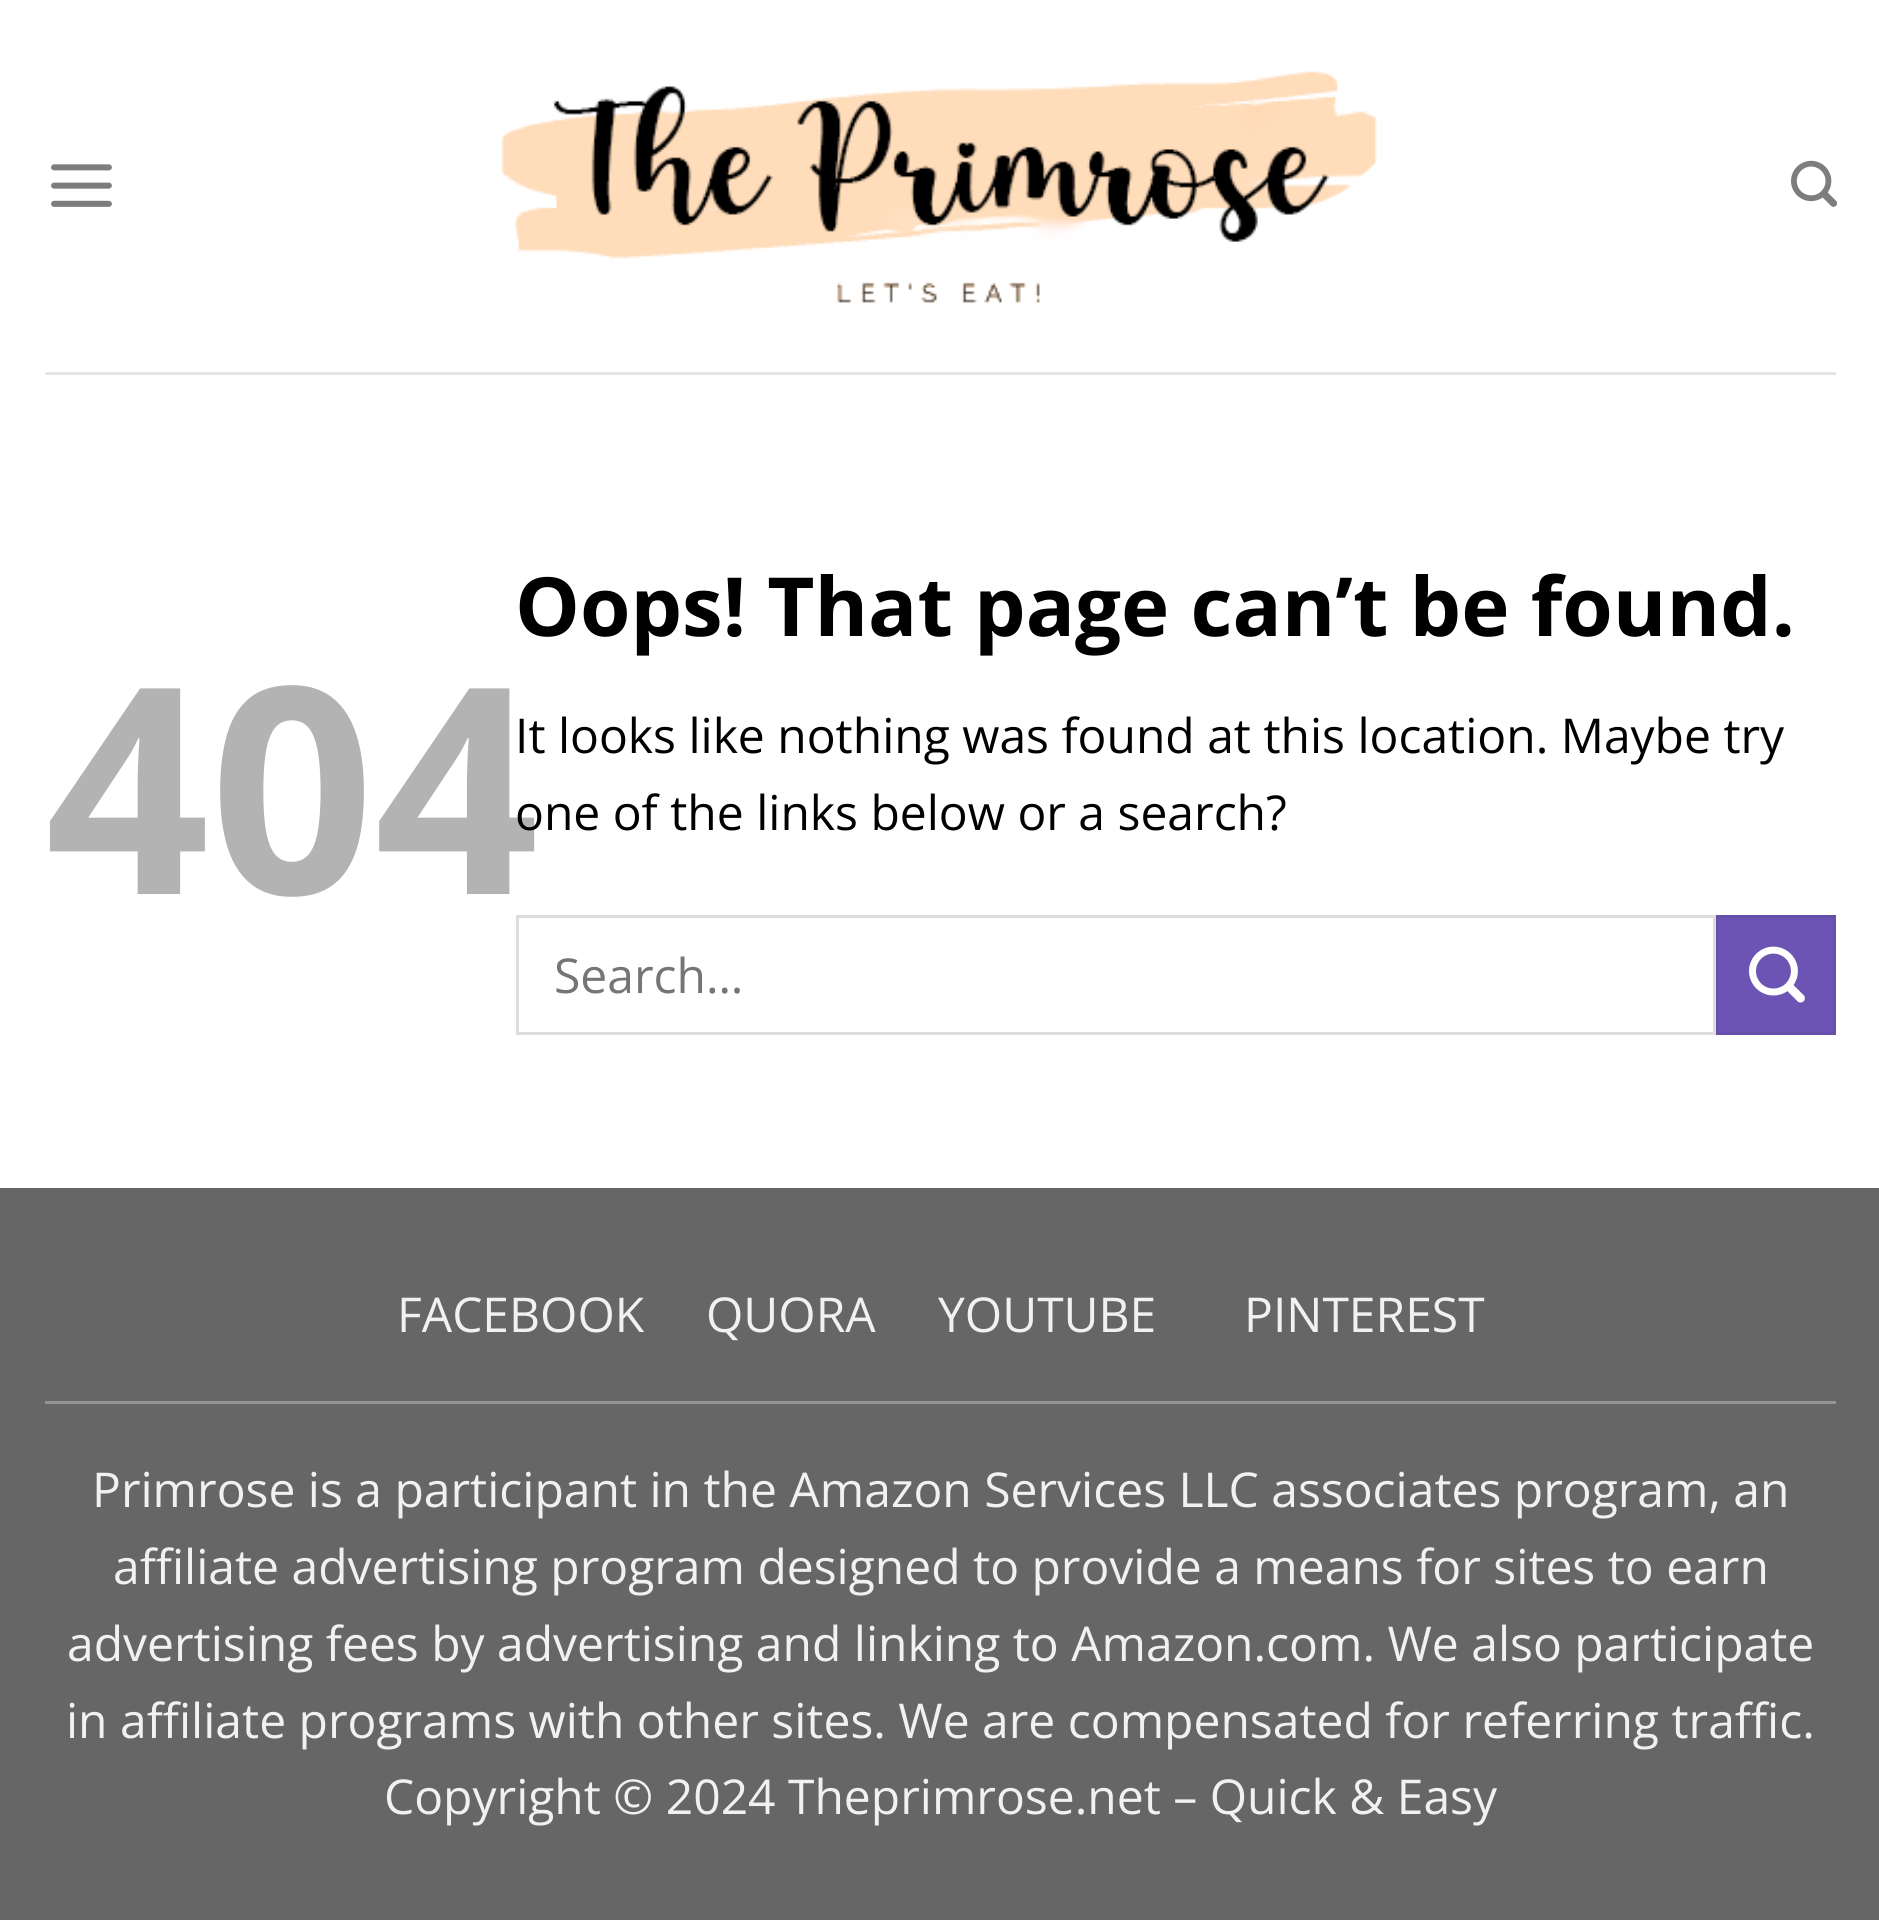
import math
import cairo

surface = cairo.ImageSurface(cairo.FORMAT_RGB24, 1879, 1920)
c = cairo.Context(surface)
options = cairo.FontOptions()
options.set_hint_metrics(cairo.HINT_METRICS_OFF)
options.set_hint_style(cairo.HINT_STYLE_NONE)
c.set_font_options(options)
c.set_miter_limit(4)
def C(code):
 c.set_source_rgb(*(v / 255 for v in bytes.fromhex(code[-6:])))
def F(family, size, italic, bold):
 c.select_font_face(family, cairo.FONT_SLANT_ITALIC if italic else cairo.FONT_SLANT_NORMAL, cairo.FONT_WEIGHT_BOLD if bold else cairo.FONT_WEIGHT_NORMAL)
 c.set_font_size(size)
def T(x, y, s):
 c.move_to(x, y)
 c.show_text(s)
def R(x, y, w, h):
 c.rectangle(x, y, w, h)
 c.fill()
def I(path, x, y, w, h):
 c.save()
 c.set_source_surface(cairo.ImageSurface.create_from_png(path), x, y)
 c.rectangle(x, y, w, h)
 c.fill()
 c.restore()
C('ffffff')
c.paint()
I('1.png',51,164,61,43)
I('2.png',501,71,877,232)
I('3.png',1791,160,47,47)
C('e6e6e6')
R(45,372,1791,3)
F('Open Sans',288,0,1)
C('b3b3b3')
T(45,894,'404')
F('Open Sans',81.6,0,1)
C('000000')
T(515,636,'Oops! That page can’t be found.')
F('Open Sans',48,0,0)
T(515,753,'It looks like nothing was found at this location. Maybe try')
T(515,830,'one of the links below or a search?')
c.rectangle(517.5,916.5,1197,117)
C('dddddd')
c.set_line_width(3)
c.stroke()
C('757575')
T(554,993,'Search…')
C('6b54b4')
c.rectangle(1717.5,916.5,117,117)
c.fill_preserve()
C('6650ab')
c.stroke()
I('4.png',1749,946,56,57)
C('666666')
R(0,1188,1879,732)
C('f1f1f1')
T(397,1332,'FACEBOOK')
T(706,1332,'QUORA')
T(938,1332,'YOUTUBE')
T(1244,1332,'PINTEREST')
C('949494')
R(45,1401,1791,3)
C('f1f1f1')
T(92,1507,'Primrose is a participant in the Amazon Services LLC associates program, an')
T(113,1584,'affiliate advertising program designed to provide a means for sites to earn')
T(67,1661,'advertising fees by advertising and linking to Amazon.com. We also participate')
T(66,1738,'in affiliate programs with other sites. We are compensated for referring traffic.')
T(384,1814,'Copyright © 2024 Theprimrose.net – Quick & Easy')
surface.write_to_png('o.png')
